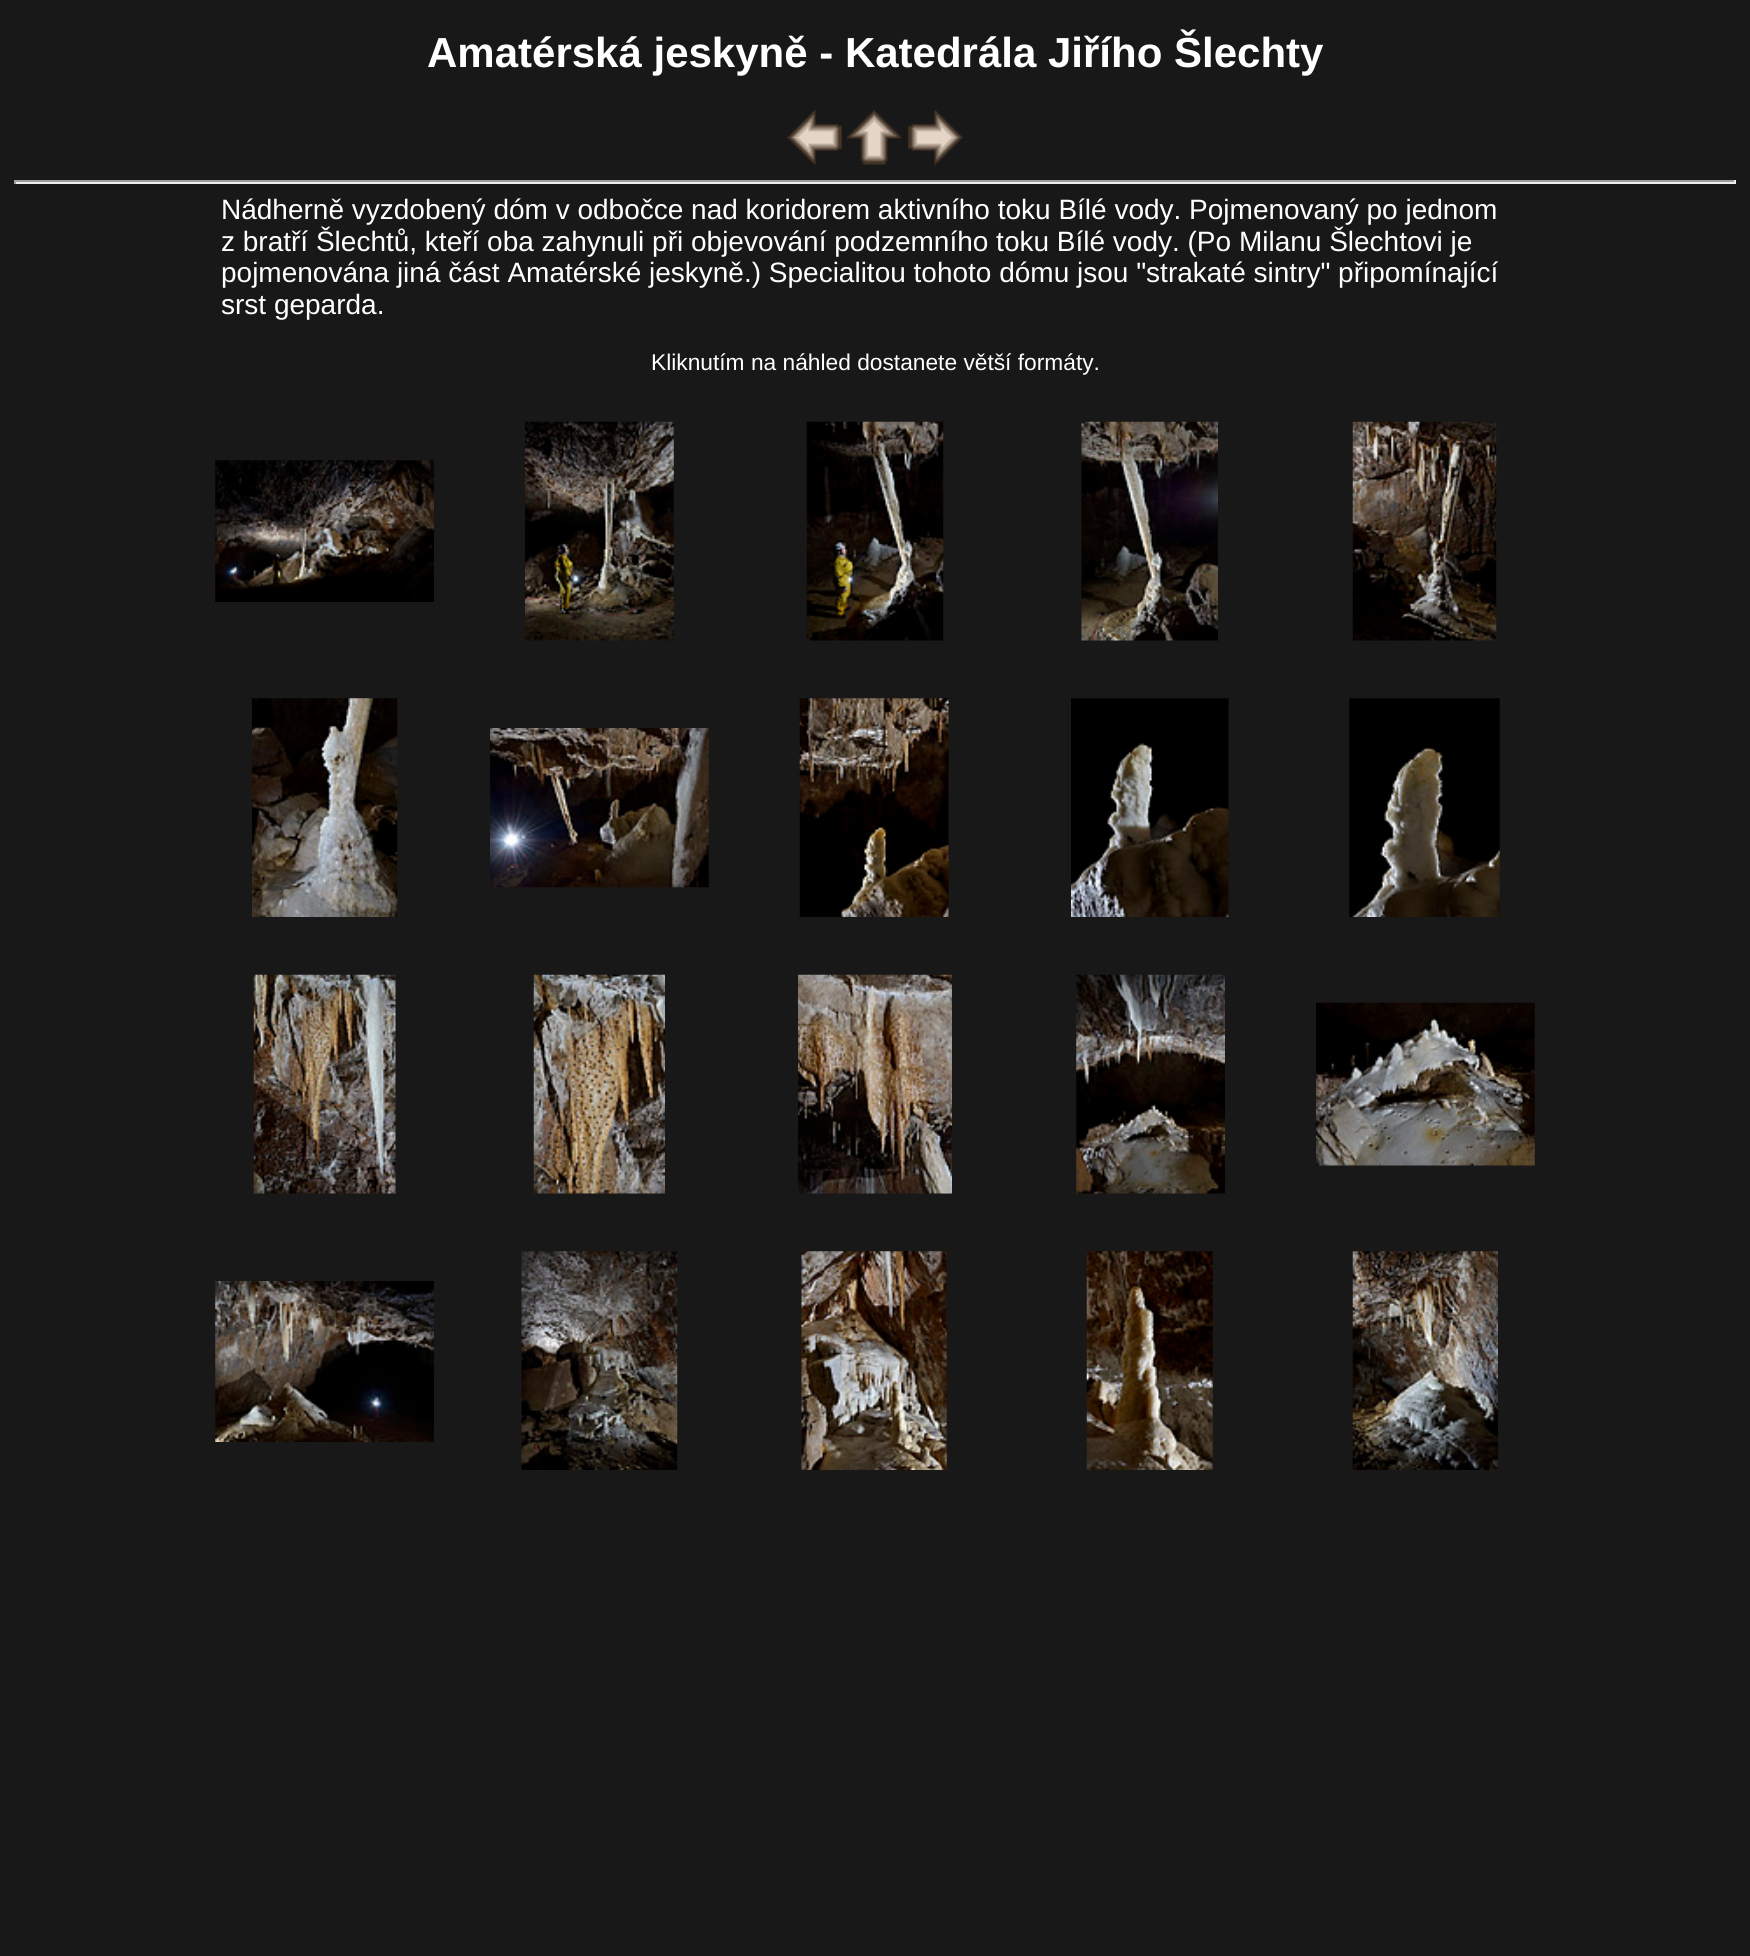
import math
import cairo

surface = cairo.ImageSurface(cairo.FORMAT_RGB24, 1750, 1956)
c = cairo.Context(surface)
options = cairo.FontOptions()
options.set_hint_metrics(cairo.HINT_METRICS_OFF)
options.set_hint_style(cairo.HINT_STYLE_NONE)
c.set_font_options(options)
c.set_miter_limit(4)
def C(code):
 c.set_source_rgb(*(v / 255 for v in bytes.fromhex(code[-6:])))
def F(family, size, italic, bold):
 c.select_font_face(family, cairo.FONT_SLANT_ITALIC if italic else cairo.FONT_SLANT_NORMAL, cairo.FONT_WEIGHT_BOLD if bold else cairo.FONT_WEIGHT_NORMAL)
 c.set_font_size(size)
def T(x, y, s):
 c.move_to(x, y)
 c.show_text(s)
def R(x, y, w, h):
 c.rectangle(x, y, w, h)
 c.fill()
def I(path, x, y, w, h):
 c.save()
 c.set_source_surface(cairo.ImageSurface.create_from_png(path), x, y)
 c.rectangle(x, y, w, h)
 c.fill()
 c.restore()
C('181818')
c.paint()
F('Liberation Sans',42,0,1)
C('ffffff')
T(427,67,'Amatérská jeskyně - Katedrála Jiřího Šlechty')
I('1.png',787,110,55,55)
I('2.png',847,110,55,55)
I('3.png',908,110,55,55)
C('9f9f9f')
R(14,180,1722,2)
C('eeeeee')
R(1734,180,2,4)
R(14,182,1722,2)
C('9f9f9f')
R(14,180,2,4)
F('Liberation Sans',28,0,0)
C('ffffff')
T(221,219,'Nádherně vyzdobený dóm v odbočce nad koridorem aktivního toku Bílé vody. Pojmenovaný po jednom')
T(221,251,'z bratří Šlechtů, kteří oba zahynuli při objevování podzemního toku Bílé vody. (Po Milanu Šlechtovi je')
T(221,282,'pojmenována jiná část Amatérské jeskyně.) Specialitou tohoto dómu jsou "strakaté sintry" připomínající')
T(221,314,'srst geparda.')
F('Liberation Sans',22.75,0,0)
T(651,370,'Kliknutím na náhled dostanete větší formáty.')
I('4.png',215,460,219,142)
I('5.png',525,421,149,220)
I('6.png',806,421,138,220)
I('7.png',1081,421,137,220)
I('8.png',1352,421,145,220)
I('9.png',252,698,146,219)
I('10.png',490,728,219,160)
I('11.png',799,698,150,219)
I('12.png',1071,698,158,219)
I('13.png',1349,698,151,219)
I('14.png',253,974,143,220)
I('15.png',533,974,132,220)
I('16.png',798,974,154,220)
I('17.png',1076,974,149,220)
I('18.png',1316,1002,219,164)
I('19.png',215,1281,219,161)
I('20.png',521,1251,157,219)
I('21.png',801,1251,146,219)
I('22.png',1086,1251,127,219)
I('23.png',1352,1251,146,219)
surface.write_to_png('o.png')
